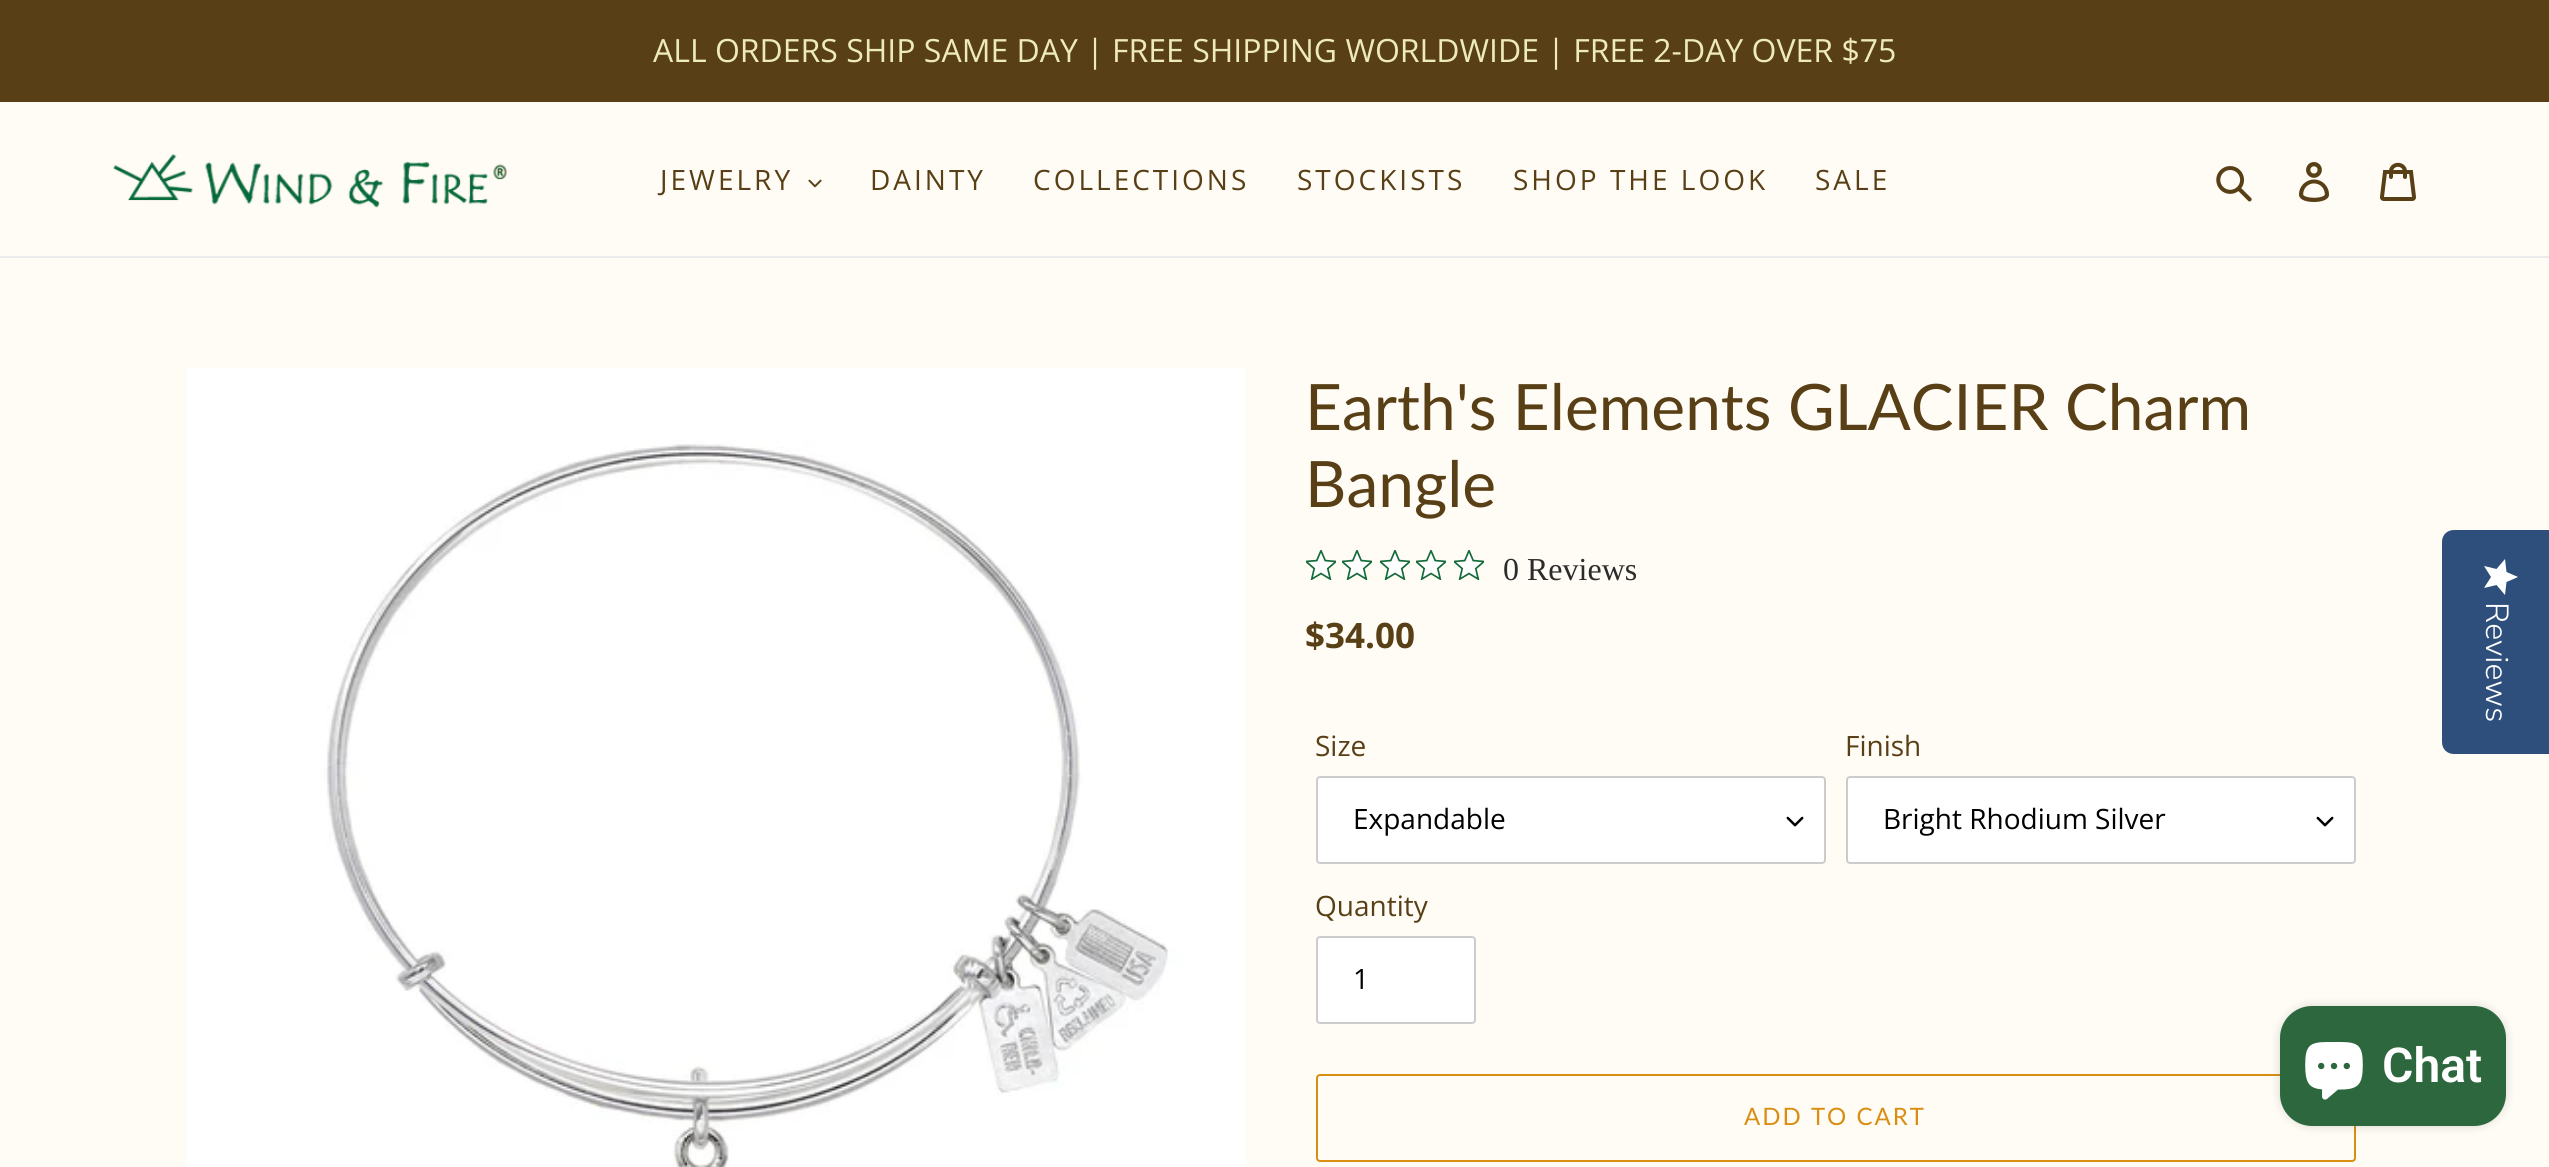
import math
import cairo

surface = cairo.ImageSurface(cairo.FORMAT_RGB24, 2549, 1167)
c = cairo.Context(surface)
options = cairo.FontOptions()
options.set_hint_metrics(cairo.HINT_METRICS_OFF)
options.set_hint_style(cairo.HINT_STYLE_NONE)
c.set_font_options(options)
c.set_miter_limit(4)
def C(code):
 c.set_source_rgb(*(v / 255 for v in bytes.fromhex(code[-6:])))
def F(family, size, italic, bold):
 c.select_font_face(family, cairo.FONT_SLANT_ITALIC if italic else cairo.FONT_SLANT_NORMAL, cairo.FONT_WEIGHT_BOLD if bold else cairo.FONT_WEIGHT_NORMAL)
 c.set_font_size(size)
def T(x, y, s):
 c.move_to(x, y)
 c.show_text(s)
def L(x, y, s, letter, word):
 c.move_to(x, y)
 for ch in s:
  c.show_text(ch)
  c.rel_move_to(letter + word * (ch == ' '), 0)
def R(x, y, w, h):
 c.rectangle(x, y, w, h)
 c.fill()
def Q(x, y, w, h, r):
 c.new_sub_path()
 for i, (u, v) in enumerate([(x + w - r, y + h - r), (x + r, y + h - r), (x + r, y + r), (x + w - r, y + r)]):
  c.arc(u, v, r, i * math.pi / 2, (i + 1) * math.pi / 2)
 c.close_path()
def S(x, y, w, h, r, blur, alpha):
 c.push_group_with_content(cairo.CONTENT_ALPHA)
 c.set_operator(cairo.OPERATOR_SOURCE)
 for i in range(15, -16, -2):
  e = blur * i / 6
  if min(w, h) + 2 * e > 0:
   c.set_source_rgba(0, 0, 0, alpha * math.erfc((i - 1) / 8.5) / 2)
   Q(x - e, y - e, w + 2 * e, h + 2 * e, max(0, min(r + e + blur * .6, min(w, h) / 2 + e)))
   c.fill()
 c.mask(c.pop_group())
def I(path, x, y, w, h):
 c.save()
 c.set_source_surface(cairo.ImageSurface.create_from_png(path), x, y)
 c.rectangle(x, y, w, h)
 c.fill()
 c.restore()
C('fffcf5')
c.paint()
C('593f16')
R(0,0,2549,102)
F('Open Sans',32,0,0)
C('edebba')
T(653,62,'ALL ORDERS SHIP SAME DAY | FREE SHIPPING WORLDWIDE | FREE 2-DAY OVER $75')
C('ebebeb')
R(0,256,2549,2)
I('1.png',113,154,394,54)
F('Open Sans',28,0,0)
C('593f16')
L(660,190,'JEWELRY',3,0)
I('2.png',808,179,14,9)
L(870,190,'DAINTY',3,0)
L(1033,190,'COLLECTIONS',3,0)
L(1297,190,'STOCKISTS',3,0)
L(1513,190,'SHOP THE LOOK',3,0)
L(1815,190,'SALE',3,0)
I('3.png',2216,166,36,36)
I('4.png',2299,162,31,40)
I('5.png',2380,162,36,39)
I('6.png',186,368,1060,799)
F('Lato',64,0,0)
T(1305,430,'Earth\'s Elements GLACIER Charm')
T(1305,507,'Bangle')
I('7.png',1306,550,30,30)
I('7.png',1342,550,30,30)
I('7.png',1380,550,30,30)
I('7.png',1416,550,30,30)
I('7.png',1454,550,30,30)
F('Liberation Serif',32,0,0)
C('2c2c2c')
T(1503,580,'0 Reviews')
F('Open Sans',35,0,1)
C('593f16')
T(1305,648,'$34.00')
F('Open Sans',28,0,0)
T(1315,756,'Size')
C('ffffff')
Q(1316,776,510,88,4)
c.fill()
I('8.png',1786,816,18,11)
Q(1317,777,508,86,3)
C('cccccc')
c.stroke()
C('000000')
T(1353,829,'Expandable')
C('593f16')
T(1845,756,'Finish')
C('ffffff')
Q(1846,776,510,88,4)
c.fill()
I('8.png',2316,816,18,11)
Q(1847,777,508,86,3)
C('cccccc')
c.stroke()
C('000000')
T(1883,829,'Bright Rhodium Silver')
C('593f16')
T(1315,916,'Quantity')
C('ffffff')
Q(1317,937,158,86,3)
c.fill_preserve()
C('cccccc')
c.stroke()
C('000000')
T(1353,989,'1')
Q(1317,1075,1038,86,3)
C('d98e12')
c.stroke()
F('Lato',24,0,0)
L(1744,1125,'ADD TO CART',2,0)
C('2e4f7c')
c.new_path()
c.move_to(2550,530)
c.line_to(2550,754)
c.line_to(2454,754)
c.curve_to(2447,754,2442,749,2442,742)
c.line_to(2442,542)
c.curve_to(2442,535,2447,530,2454,530)
c.close_path()
c.fill()
gradient = cairo.LinearGradient(2518,559,2518,595)
gradient.add_color_stop_rgba(1,1,1,1,1)
gradient.add_color_stop_rgba(1,0.918,0.918,0.918,1)
c.set_source(gradient)
c.new_path()
c.move_to(2491,577)
c.line_to(2484,588)
c.line_to(2496.5,585)
c.line_to(2505,595)
c.line_to(2506.5,582)
c.line_to(2518,577)
c.line_to(2506.5,572)
c.line_to(2505,559)
c.line_to(2496.5,569)
c.line_to(2484,566)
c.close_path()
c.fill()
F('Nunito Sans Light',32,0,0)
C('ffffff')
c.save()
c.translate(2486,602)
c.rotate(90 * math.pi / 180)
T(0,0,'Reviews')
c.restore()
C('000000')
S(2280,1006,226,120,32,5,.15)
C('2d673e')
Q(2280,1006,226,120,32)
c.fill()
I('9.png',2305,1042,58,58)
F('Roboto SemiBold',48,0,0)
C('ffffff')
T(2382,1082,'Chat')
surface.write_to_png('o.png')
